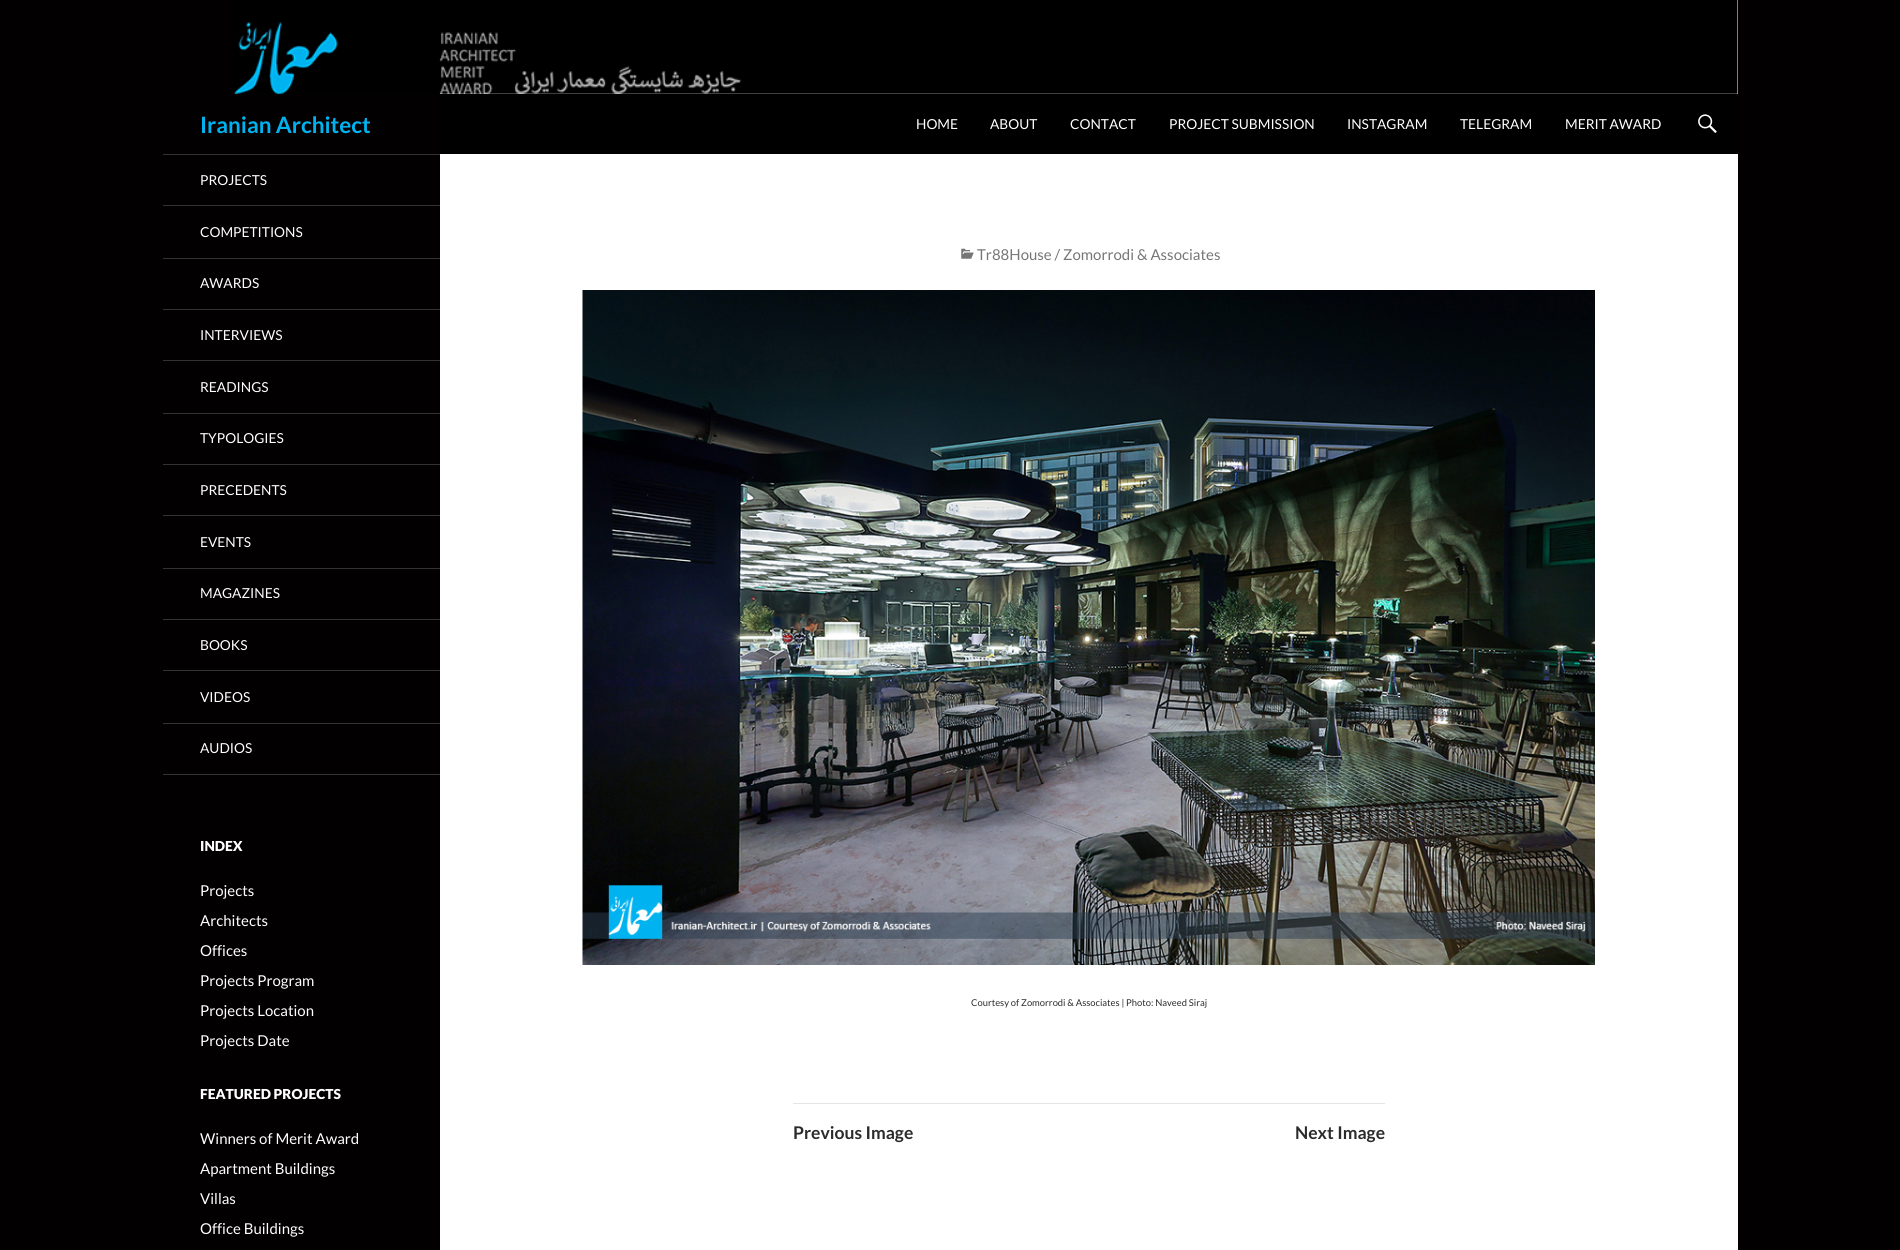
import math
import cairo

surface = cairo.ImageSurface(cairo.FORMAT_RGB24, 1900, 1250)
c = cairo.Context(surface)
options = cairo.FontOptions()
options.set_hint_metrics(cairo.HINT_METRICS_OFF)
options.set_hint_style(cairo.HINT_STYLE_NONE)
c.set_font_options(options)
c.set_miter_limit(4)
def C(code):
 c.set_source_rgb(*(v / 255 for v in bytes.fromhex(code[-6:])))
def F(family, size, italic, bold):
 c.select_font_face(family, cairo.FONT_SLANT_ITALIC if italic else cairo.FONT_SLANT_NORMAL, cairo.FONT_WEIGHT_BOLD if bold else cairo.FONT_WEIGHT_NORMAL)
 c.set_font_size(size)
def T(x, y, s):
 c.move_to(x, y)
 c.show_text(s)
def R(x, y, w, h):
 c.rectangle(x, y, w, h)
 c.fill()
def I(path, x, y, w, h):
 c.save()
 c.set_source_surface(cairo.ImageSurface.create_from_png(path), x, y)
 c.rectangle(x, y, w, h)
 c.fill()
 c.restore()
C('020000')
c.paint()
C('ffffff')
R(440,0,1298,1250)
I('1.png',233,0,1505,94)
C('000000')
R(440,94,1298,60)
F('Lato',22.5,0,1)
C('00b3f0')
T(200,133,'Iranian Architect')
F('Lato',13.75,0,0)
C('ffffff')
T(916,129,'HOME')
T(990,129,'ABOUT')
T(1070,129,'CONTACT')
T(1169,129,'PROJECT SUBMISSION')
T(1347,129,'INSTAGRAM')
T(1460,129,'TELEGRAM')
T(1565,129,'MERIT AWARD')
I('2.png',1698,114,19,19)
C('333333')
R(163,774,277,1)
R(163,154,277,1)
C('ffffff')
T(200,185,'PROJECTS')
C('333333')
R(163,205,277,1)
C('ffffff')
T(200,237,'COMPETITIONS')
C('333333')
R(163,258,277,1)
C('ffffff')
T(200,288,'AWARDS')
C('333333')
R(163,309,277,1)
C('ffffff')
T(200,340,'INTERVIEWS')
C('333333')
R(163,360,277,1)
C('ffffff')
T(200,392,'READINGS')
C('333333')
R(163,413,277,1)
C('ffffff')
T(200,443,'TYPOLOGIES')
C('333333')
R(163,464,277,1)
C('ffffff')
T(200,495,'PRECEDENTS')
C('333333')
R(163,515,277,1)
C('ffffff')
T(200,547,'EVENTS')
C('333333')
R(163,568,277,1)
C('ffffff')
T(200,598,'MAGAZINES')
C('333333')
R(163,619,277,1)
C('ffffff')
T(200,650,'BOOKS')
C('333333')
R(163,670,277,1)
C('ffffff')
T(200,702,'VIDEOS')
C('333333')
R(163,723,277,1)
C('ffffff')
T(200,753,'AUDIOS')
F('Lato Black',13.75,0,0)
T(200,851,'INDEX')
F('Lato',15,0,0)
T(200,896,'Projects')
T(200,926,'Architects')
T(200,956,'Offices')
T(200,986,'Projects Program')
T(200,1016,'Projects Location')
T(200,1046,'Projects Date')
F('Lato Black',13.75,0,0)
T(200,1099,'FEATURED PROJECTS')
F('Lato',15,0,0)
T(200,1144,'Winners of Merit Award')
T(200,1174,'Apartment Buildings')
T(200,1204,'Villas')
T(200,1234,'Office Buildings')
I('3.png',961,248,13,11)
C('767676')
T(977,260,'Tr88House / Zomorrodi & Associates')
I('4.png',582,290,1013,675)
F('Lato',9.4,0,0)
C('2b2b2b')
T(971,1006,'Courtesy of Zomorrodi & Associates | Photo: Naveed Siraj')
C('e6e6e6')
R(793,1103,592,1)
F('Lato',17.5,0,1)
C('2b2b2b')
T(793,1139,'Previous Image')
T(1295,1139,'Next Image')
surface.write_to_png('o.png')
